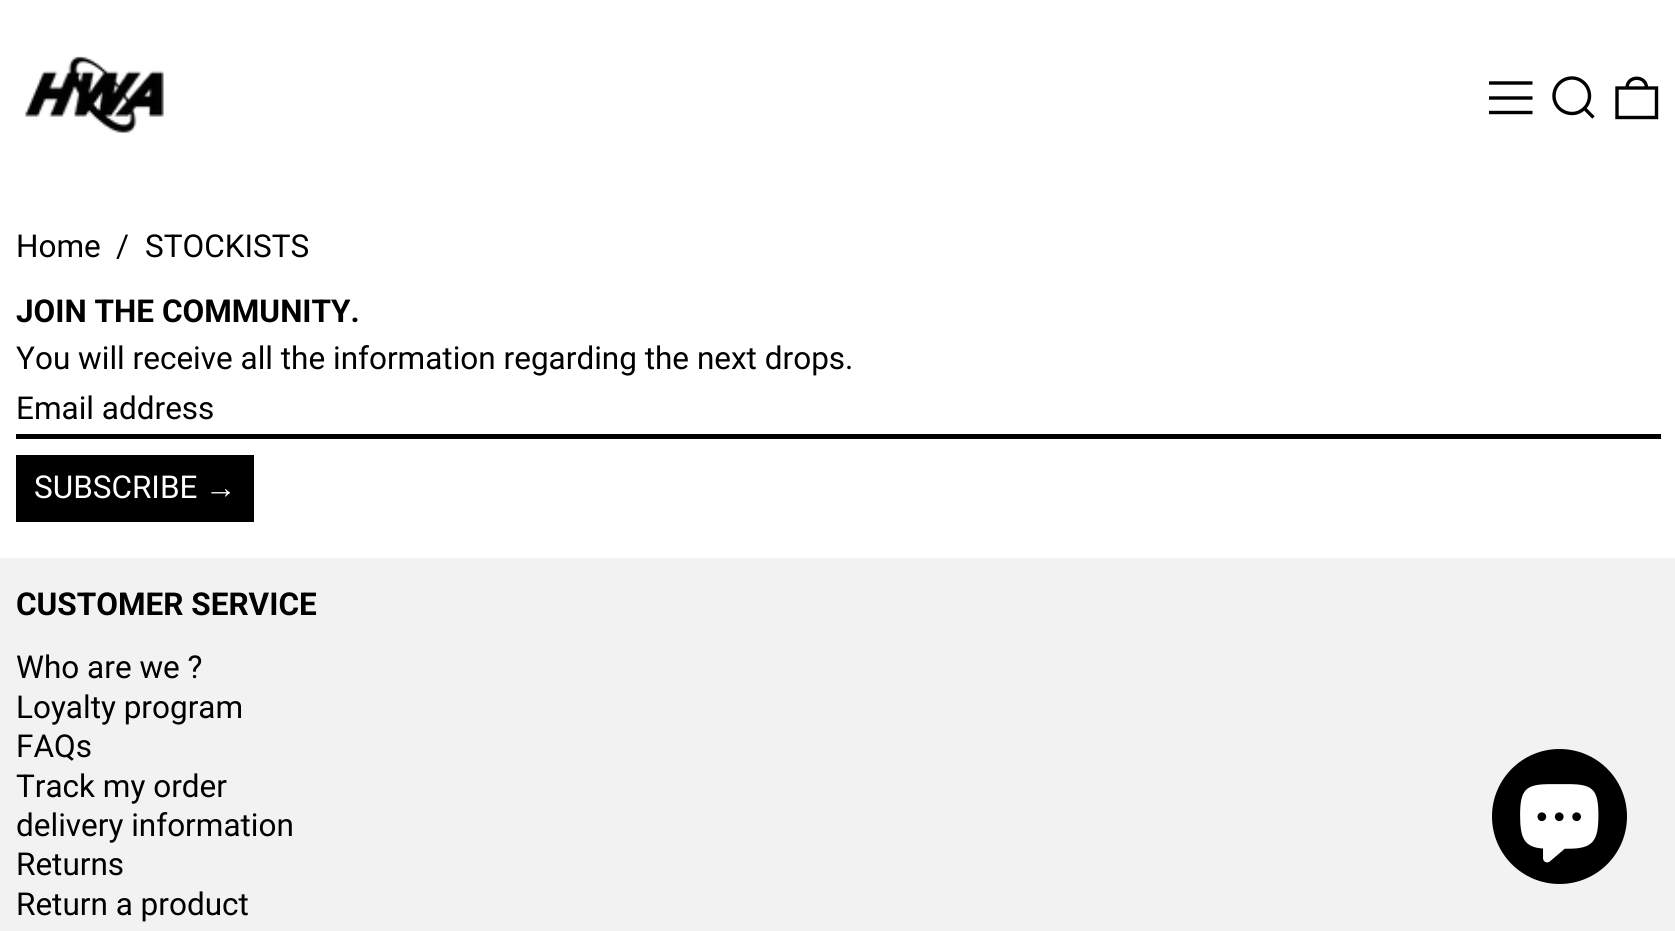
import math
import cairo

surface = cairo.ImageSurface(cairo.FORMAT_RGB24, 1675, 931)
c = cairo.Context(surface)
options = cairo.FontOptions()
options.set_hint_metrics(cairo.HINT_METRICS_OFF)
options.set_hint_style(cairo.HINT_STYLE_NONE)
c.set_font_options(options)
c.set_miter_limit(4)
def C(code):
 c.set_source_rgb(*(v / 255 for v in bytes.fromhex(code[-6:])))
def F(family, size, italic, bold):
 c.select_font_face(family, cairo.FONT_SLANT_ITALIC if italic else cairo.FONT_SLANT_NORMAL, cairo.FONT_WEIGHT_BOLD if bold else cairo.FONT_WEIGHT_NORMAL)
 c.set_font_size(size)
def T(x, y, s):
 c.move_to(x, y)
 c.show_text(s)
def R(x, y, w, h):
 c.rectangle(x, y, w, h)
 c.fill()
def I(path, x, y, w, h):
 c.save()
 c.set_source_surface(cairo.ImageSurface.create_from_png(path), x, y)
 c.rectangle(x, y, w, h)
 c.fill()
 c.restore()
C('ffffff')
c.paint()
I('1.png',24,56,140,78)
c.new_path()
c.move_to(1489,83)
c.line_to(1532.5,83)
c.move_to(1489,98)
c.line_to(1532.5,98)
c.move_to(1489,112.5)
c.line_to(1532.5,112.5)
C('000000')
c.set_line_width(3.4)
c.stroke()
c.new_path()
c.move_to(1554,96)
c.curve_to(1554,105.5,1562,113.5,1572,113.5)
c.curve_to(1581.5,113.5,1589.5,105.5,1589.5,96)
c.curve_to(1589.5,86,1581.5,78,1572,78)
c.curve_to(1562,78,1554,86,1554,96)
c.close_path()
c.move_to(1584.5,108.5)
c.line_to(1593.5,117.5)
c.stroke()
c.new_path()
c.move_to(1617,88)
c.line_to(1656.5,88)
c.line_to(1656.5,117.5)
c.line_to(1617,117.5)
c.close_path()
c.move_to(1646.5,88)
c.curve_to(1646.5,75,1627,75,1627,88)
c.stroke()
F('Roboto',31.5,0,0)
T(16,257,'Home')
T(116,257,'/')
T(145,257,'STOCKISTS')
F('Roboto',31.5,0,1)
T(16,322,'JOIN THE COMMUNITY.')
F('Roboto',31.5,0,0)
T(16,369,'You will receive all the information regarding the next drops.')
R(16,434,1645,5)
T(16,419,'Email address')
R(16,455,238,67)
C('ffffff')
T(34,498,'SUBSCRIBE')
F('Liberation Sans',31.5,0,0)
T(205,498,'→')
C('f2f2f2')
R(0,558,1675,373)
F('Roboto',31.5,0,1)
C('000000')
T(16,615,'CUSTOMER SERVICE')
F('Roboto',31.5,0,0)
T(16,678,'Who are we ?')
T(16,718,'Loyalty program')
T(16,757,'FAQs')
T(16,797,'Track my order')
T(16,836,'delivery information')
T(16,875,'Returns')
T(16,915,'Return a product')
c.new_path()
c.arc(1559.5,816.5,67.5,0,2 * math.pi)
c.fill()
I('2.png',1520,784,79,79)
surface.write_to_png('o.png')
